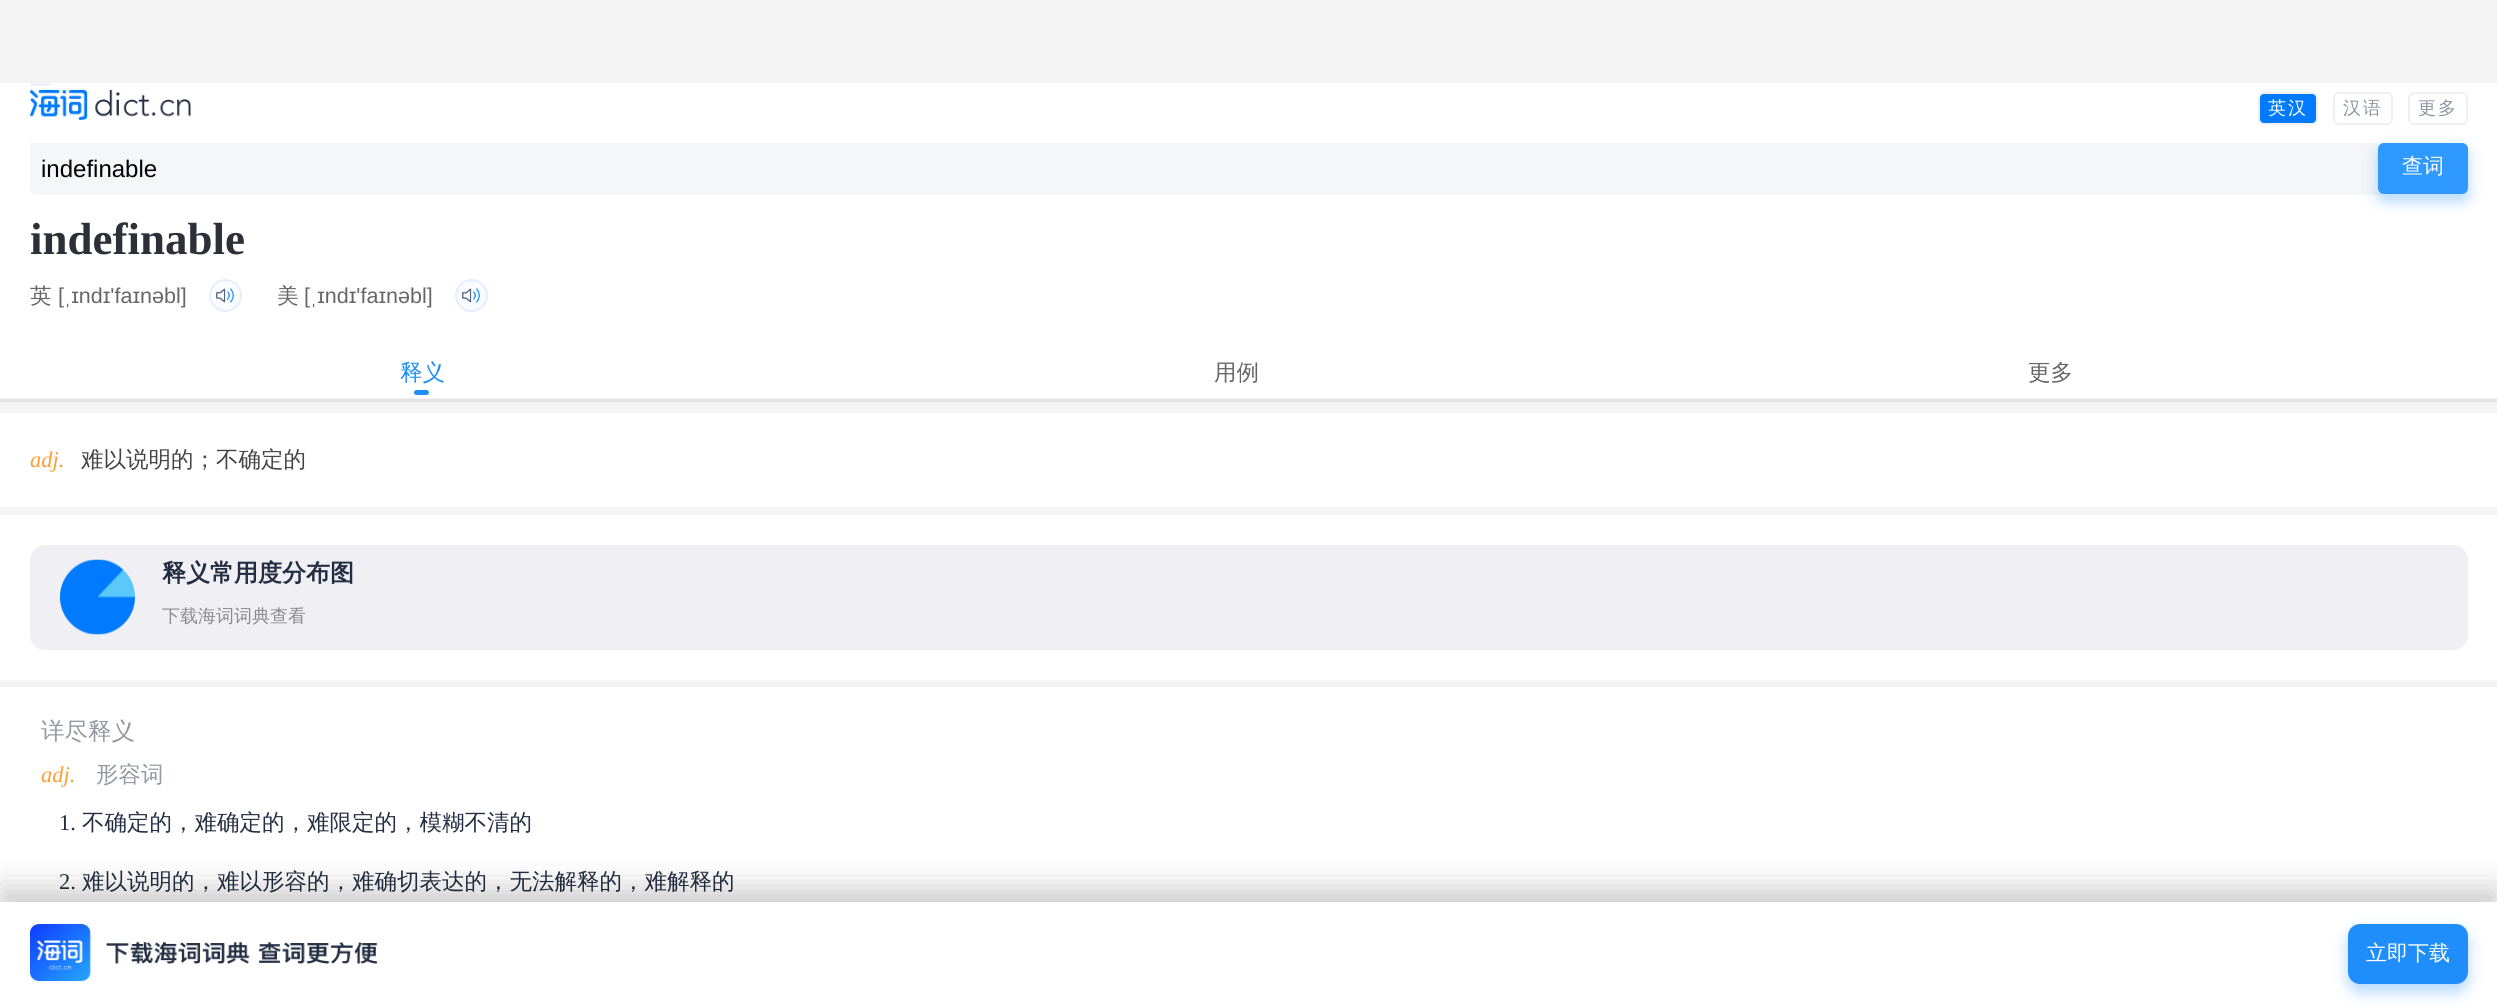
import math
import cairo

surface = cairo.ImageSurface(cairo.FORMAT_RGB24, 2497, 1006)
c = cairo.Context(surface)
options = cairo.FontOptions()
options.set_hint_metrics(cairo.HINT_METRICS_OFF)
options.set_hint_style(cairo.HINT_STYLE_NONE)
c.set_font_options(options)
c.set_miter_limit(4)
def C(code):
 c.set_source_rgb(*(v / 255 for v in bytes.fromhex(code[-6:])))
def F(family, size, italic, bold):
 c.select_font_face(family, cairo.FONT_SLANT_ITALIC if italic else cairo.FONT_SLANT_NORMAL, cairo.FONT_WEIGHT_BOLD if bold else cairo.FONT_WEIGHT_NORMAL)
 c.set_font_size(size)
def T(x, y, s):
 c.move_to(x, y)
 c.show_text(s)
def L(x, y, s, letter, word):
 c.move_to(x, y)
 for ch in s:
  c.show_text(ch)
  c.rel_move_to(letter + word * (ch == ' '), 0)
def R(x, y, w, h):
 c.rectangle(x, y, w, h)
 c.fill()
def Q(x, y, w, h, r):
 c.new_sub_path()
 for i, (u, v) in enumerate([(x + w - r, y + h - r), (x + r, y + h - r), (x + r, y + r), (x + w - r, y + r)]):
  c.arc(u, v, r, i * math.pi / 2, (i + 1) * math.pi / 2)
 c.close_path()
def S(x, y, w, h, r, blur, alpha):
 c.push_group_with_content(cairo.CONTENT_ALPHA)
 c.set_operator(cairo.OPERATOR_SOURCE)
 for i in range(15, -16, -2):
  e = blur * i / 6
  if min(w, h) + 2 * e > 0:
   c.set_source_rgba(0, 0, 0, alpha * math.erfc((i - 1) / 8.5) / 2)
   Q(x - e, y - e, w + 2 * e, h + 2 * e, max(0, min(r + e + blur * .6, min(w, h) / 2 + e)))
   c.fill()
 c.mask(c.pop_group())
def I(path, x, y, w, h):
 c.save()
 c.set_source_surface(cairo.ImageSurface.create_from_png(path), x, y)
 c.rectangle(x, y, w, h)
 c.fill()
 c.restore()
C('f3f3f3')
c.paint()
C('ffffff')
R(0,83,2497,108)
I('1.png',30,90,161,30)
C('efeff4')
Q(30,83,21,3,1.5)
c.fill()
C('007aff')
Q(2259,93,58,31,5)
c.fill_preserve()
C('efeff4')
c.stroke()
F('WenQuanYi Zen Hei Medium',18,0,0)
C('ffffff')
L(2268,114,'英汉',2,0)
Q(2334,93,58,31,5)
C('efeff4')
c.stroke()
C('8c96a0')
L(2343,114,'汉语',2,0)
Q(2409,93,58,31,5)
C('efeff4')
c.stroke()
C('8c96a0')
L(2418,114,'更多',2,0)
C('f4f6f7')
Q(30,143,2438,48,6)
c.fill()
R(30,143,4,48)
C('ffffff')
R(0,191,2497,207)
C('f4f6f7')
Q(30,143,2355,52,6)
c.fill()
F('Liberation Sans',24,0,0)
C('000000')
T(41,177,'indefinable')
C('1f8efa')
S(2378,150,90,51,6,7.5,.35)
C('3099ff')
Q(2378,143,90,51,6)
c.fill()
F('WenQuanYi Zen Hei Medium',21,0,0)
C('ffffff')
T(2402,173,'查词')
F('Liberation Serif',45,0,1)
C('2e3039')
T(30,254,'indefinable')
F('WenQuanYi Zen Hei Medium',21.5,0,0)
C('666666')
T(30,303,'英')
F('Liberation Sans',21.5,0,0)
T(58,303,'[ˌɪndɪ\'faɪnəbl]')
C('fafcff')
c.new_path()
c.arc(225.5,295.5,15.5,0,2 * math.pi)
c.fill_preserve()
C('e4eefd')
c.stroke()
I('2.png',216,288,18,15)
F('WenQuanYi Zen Hei Medium',21.5,0,0)
C('666666')
T(277,303,'美')
F('Liberation Sans',21.5,0,0)
T(304,303,'[ˌɪndɪ\'faɪnəbl]')
C('fafcff')
c.new_path()
c.arc(471.5,295.5,15.5,0,2 * math.pi)
c.fill_preserve()
C('e4eefd')
c.stroke()
I('2.png',462,288,18,15)
C('efeff4')
R(0,398,2497,1)
F('WenQuanYi Zen Hei Medium',22.5,0,0)
C('1f8efa')
T(400,380,'释义')
Q(414,390,15,5,2.5)
c.fill()
C('666666')
T(1214,380,'用例')
T(2028,380,'更多')
C('e3e5e5')
R(0,399,2497,3)
C('ffffff')
R(0,413,2497,94)
F('Liberation Serif',22.5,1,0)
C('ff9d33')
T(30,467,'adj.')
F('WenQuanYi Zen Hei Medium',22.5,0,0)
C('444444')
T(81,467,'难以说明的；不确定的')
C('ffffff')
R(0,515,2497,165)
C('efeff4')
Q(30,545,2438,105,15)
c.fill()
I('3.png',60,559,75,76)
F('WenQuanYi Zen Hei',24,0,1)
C('242e42')
T(162,581,'释义常用度分布图')
F('WenQuanYi Zen Hei Medium',18,0,0)
C('8a8a8f')
T(162,622,'下载海词词典查看')
C('ffffff')
R(0,687,2497,215)
F('WenQuanYi Zen Hei Medium',23.5,0,0)
C('9297a0')
T(41,739,'详尽释义')
F('Liberation Serif',22.5,1,0)
C('ff9d33')
T(41,782,'adj.')
F('WenQuanYi Zen Hei Medium',22.5,0,0)
C('9297a0')
T(96,782,'形容词')
F('Liberation Serif',22.5,0,0)
C('242e42')
T(59,830,'1.')
F('WenQuanYi Zen Hei Medium',22.5,0,0)
T(82,830,'不确定的，难确定的，难限定的，模糊不清的')
F('Liberation Serif',22.5,0,0)
T(59,889,'2.')
F('WenQuanYi Zen Hei Medium',22.5,0,0)
T(82,889,'难以说明的，难以形容的，难确切表达的，无法解释的，难解释的')
C('000000')
S(0,887,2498,105,0,15,.1)
S(0,887,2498,105,0,15,.1)
C('ffffff')
R(0,902,2497,104)
I('4.png',30,924,348,57)
C('1f8efa')
S(2348,932,120,60,12,7.5,.35)
C('1f8efa')
Q(2348,924,120,60,12)
c.fill()
F('WenQuanYi Zen Hei Medium',21,0,0)
C('ffffff')
T(2366,960,'立即下载')
surface.write_to_png('o.png')
